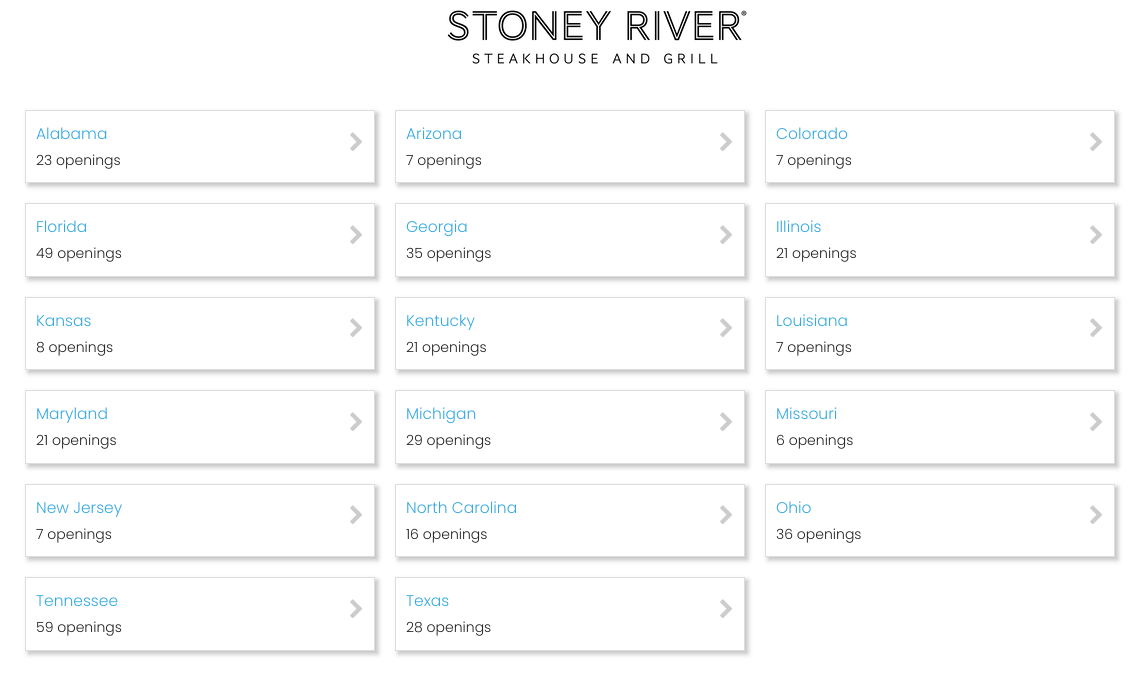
import math
import cairo

surface = cairo.ImageSurface(cairo.FORMAT_RGB24, 1140, 676)
c = cairo.Context(surface)
options = cairo.FontOptions()
options.set_hint_metrics(cairo.HINT_METRICS_OFF)
options.set_hint_style(cairo.HINT_STYLE_NONE)
c.set_font_options(options)
c.set_miter_limit(4)
def C(code):
 c.set_source_rgb(*(v / 255 for v in bytes.fromhex(code[-6:])))
def F(family, size, italic, bold):
 c.select_font_face(family, cairo.FONT_SLANT_ITALIC if italic else cairo.FONT_SLANT_NORMAL, cairo.FONT_WEIGHT_BOLD if bold else cairo.FONT_WEIGHT_NORMAL)
 c.set_font_size(size)
def T(x, y, s):
 c.move_to(x, y)
 c.show_text(s)
def Q(x, y, w, h, r):
 c.new_sub_path()
 for i, (u, v) in enumerate([(x + w - r, y + h - r), (x + r, y + h - r), (x + r, y + r), (x + w - r, y + r)]):
  c.arc(u, v, r, i * math.pi / 2, (i + 1) * math.pi / 2)
 c.close_path()
def S(x, y, w, h, r, blur, alpha):
 c.push_group_with_content(cairo.CONTENT_ALPHA)
 c.set_operator(cairo.OPERATOR_SOURCE)
 for i in range(15, -16, -2):
  e = blur * i / 6
  if min(w, h) + 2 * e > 0:
   c.set_source_rgba(0, 0, 0, alpha * math.erfc((i - 1) / 8.5) / 2)
   Q(x - e, y - e, w + 2 * e, h + 2 * e, max(0, min(r + e + blur * .6, min(w, h) / 2 + e)))
   c.fill()
 c.mask(c.pop_group())
def I(path, x, y, w, h):
 c.save()
 c.set_source_surface(cairo.ImageSurface.create_from_png(path), x, y)
 c.rectangle(x, y, w, h)
 c.fill()
 c.restore()
C('ffffff')
c.paint()
I('1.png',447,10,300,54)
c.save()
c.set_fill_rule(cairo.FILL_RULE_EVEN_ODD)
c.new_path()
c.move_to(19,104)
c.line_to(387,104)
c.line_to(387,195)
c.line_to(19,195)
c.close_path()
c.move_to(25,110)
c.line_to(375,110)
c.line_to(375,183)
c.line_to(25,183)
c.close_path()
c.clip()
C('808080')
S(28,113,350,73,0,2.5,.5)
c.restore()
c.rectangle(25.5,110.5,349,72)
C('dddddd')
c.set_line_width(1)
c.stroke()
F('Poppins Light',15.5,0,0)
C('36a9e0')
T(36,139,'Alabama')
F('Poppins Light',14,0,0)
C('222222')
T(36,165,'23 openings')
I('2.png',350,132,13,20)
c.save()
c.set_fill_rule(cairo.FILL_RULE_EVEN_ODD)
c.new_path()
c.move_to(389,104)
c.line_to(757,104)
c.line_to(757,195)
c.line_to(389,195)
c.close_path()
c.move_to(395,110)
c.line_to(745,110)
c.line_to(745,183)
c.line_to(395,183)
c.close_path()
c.clip()
C('808080')
S(398,113,350,73,0,2.5,.5)
c.restore()
c.rectangle(395.5,110.5,349,72)
C('dddddd')
c.stroke()
F('Poppins Light',15.5,0,0)
C('36a9e0')
T(406,139,'Arizona')
F('Poppins Light',14,0,0)
C('222222')
T(406,165,'7 openings')
I('2.png',720,132,13,20)
c.save()
c.set_fill_rule(cairo.FILL_RULE_EVEN_ODD)
c.new_path()
c.move_to(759,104)
c.line_to(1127,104)
c.line_to(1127,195)
c.line_to(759,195)
c.close_path()
c.move_to(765,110)
c.line_to(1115,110)
c.line_to(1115,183)
c.line_to(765,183)
c.close_path()
c.clip()
C('808080')
S(768,113,350,73,0,2.5,.5)
c.restore()
c.rectangle(765.5,110.5,349,72)
C('dddddd')
c.stroke()
F('Poppins Light',15.5,0,0)
C('36a9e0')
T(776,139,'Colorado')
F('Poppins Light',14,0,0)
C('222222')
T(776,165,'7 openings')
I('2.png',1090,132,13,20)
c.save()
c.set_fill_rule(cairo.FILL_RULE_EVEN_ODD)
c.new_path()
c.move_to(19,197)
c.line_to(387,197)
c.line_to(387,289)
c.line_to(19,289)
c.close_path()
c.move_to(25,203)
c.line_to(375,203)
c.line_to(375,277)
c.line_to(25,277)
c.close_path()
c.clip()
C('808080')
S(28,206,350,74,0,2.5,.5)
c.restore()
c.rectangle(25.5,203.5,349,73)
C('dddddd')
c.stroke()
F('Poppins Light',15.5,0,0)
C('36a9e0')
T(36,232,'Florida')
F('Poppins Light',14,0,0)
C('222222')
T(36,258,'49 openings')
I('2.png',350,225,13,20)
c.save()
c.set_fill_rule(cairo.FILL_RULE_EVEN_ODD)
c.new_path()
c.move_to(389,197)
c.line_to(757,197)
c.line_to(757,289)
c.line_to(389,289)
c.close_path()
c.move_to(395,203)
c.line_to(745,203)
c.line_to(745,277)
c.line_to(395,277)
c.close_path()
c.clip()
C('808080')
S(398,206,350,74,0,2.5,.5)
c.restore()
c.rectangle(395.5,203.5,349,73)
C('dddddd')
c.stroke()
F('Poppins Light',15.5,0,0)
C('36a9e0')
T(406,232,'Georgia')
F('Poppins Light',14,0,0)
C('222222')
T(406,258,'35 openings')
I('2.png',720,225,13,20)
c.save()
c.set_fill_rule(cairo.FILL_RULE_EVEN_ODD)
c.new_path()
c.move_to(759,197)
c.line_to(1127,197)
c.line_to(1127,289)
c.line_to(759,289)
c.close_path()
c.move_to(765,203)
c.line_to(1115,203)
c.line_to(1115,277)
c.line_to(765,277)
c.close_path()
c.clip()
C('808080')
S(768,206,350,74,0,2.5,.5)
c.restore()
c.rectangle(765.5,203.5,349,73)
C('dddddd')
c.stroke()
F('Poppins Light',15.5,0,0)
C('36a9e0')
T(776,232,'Illinois')
F('Poppins Light',14,0,0)
C('222222')
T(776,258,'21 openings')
I('2.png',1090,225,13,20)
c.save()
c.set_fill_rule(cairo.FILL_RULE_EVEN_ODD)
c.new_path()
c.move_to(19,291)
c.line_to(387,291)
c.line_to(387,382)
c.line_to(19,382)
c.close_path()
c.move_to(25,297)
c.line_to(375,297)
c.line_to(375,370)
c.line_to(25,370)
c.close_path()
c.clip()
C('808080')
S(28,300,350,73,0,2.5,.5)
c.restore()
c.rectangle(25.5,297.5,349,72)
C('dddddd')
c.stroke()
F('Poppins Light',15.5,0,0)
C('36a9e0')
T(36,326,'Kansas')
F('Poppins Light',14,0,0)
C('222222')
T(36,352,'8 openings')
I('2.png',350,318,13,20)
c.save()
c.set_fill_rule(cairo.FILL_RULE_EVEN_ODD)
c.new_path()
c.move_to(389,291)
c.line_to(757,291)
c.line_to(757,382)
c.line_to(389,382)
c.close_path()
c.move_to(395,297)
c.line_to(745,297)
c.line_to(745,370)
c.line_to(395,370)
c.close_path()
c.clip()
C('808080')
S(398,300,350,73,0,2.5,.5)
c.restore()
c.rectangle(395.5,297.5,349,72)
C('dddddd')
c.stroke()
F('Poppins Light',15.5,0,0)
C('36a9e0')
T(406,326,'Kentucky')
F('Poppins Light',14,0,0)
C('222222')
T(406,352,'21 openings')
I('2.png',720,318,13,20)
c.save()
c.set_fill_rule(cairo.FILL_RULE_EVEN_ODD)
c.new_path()
c.move_to(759,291)
c.line_to(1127,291)
c.line_to(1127,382)
c.line_to(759,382)
c.close_path()
c.move_to(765,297)
c.line_to(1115,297)
c.line_to(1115,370)
c.line_to(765,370)
c.close_path()
c.clip()
C('808080')
S(768,300,350,73,0,2.5,.5)
c.restore()
c.rectangle(765.5,297.5,349,72)
C('dddddd')
c.stroke()
F('Poppins Light',15.5,0,0)
C('36a9e0')
T(776,326,'Louisiana')
F('Poppins Light',14,0,0)
C('222222')
T(776,352,'7 openings')
I('2.png',1090,318,13,20)
c.save()
c.set_fill_rule(cairo.FILL_RULE_EVEN_ODD)
c.new_path()
c.move_to(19,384)
c.line_to(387,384)
c.line_to(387,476)
c.line_to(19,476)
c.close_path()
c.move_to(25,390)
c.line_to(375,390)
c.line_to(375,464)
c.line_to(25,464)
c.close_path()
c.clip()
C('808080')
S(28,393,350,74,0,2.5,.5)
c.restore()
c.rectangle(25.5,390.5,349,73)
C('dddddd')
c.stroke()
F('Poppins Light',15.5,0,0)
C('36a9e0')
T(36,419,'Maryland')
F('Poppins Light',14,0,0)
C('222222')
T(36,445,'21 openings')
I('2.png',350,412,13,20)
c.save()
c.set_fill_rule(cairo.FILL_RULE_EVEN_ODD)
c.new_path()
c.move_to(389,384)
c.line_to(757,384)
c.line_to(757,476)
c.line_to(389,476)
c.close_path()
c.move_to(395,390)
c.line_to(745,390)
c.line_to(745,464)
c.line_to(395,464)
c.close_path()
c.clip()
C('808080')
S(398,393,350,74,0,2.5,.5)
c.restore()
c.rectangle(395.5,390.5,349,73)
C('dddddd')
c.stroke()
F('Poppins Light',15.5,0,0)
C('36a9e0')
T(406,419,'Michigan')
F('Poppins Light',14,0,0)
C('222222')
T(406,445,'29 openings')
I('2.png',720,412,13,20)
c.save()
c.set_fill_rule(cairo.FILL_RULE_EVEN_ODD)
c.new_path()
c.move_to(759,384)
c.line_to(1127,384)
c.line_to(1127,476)
c.line_to(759,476)
c.close_path()
c.move_to(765,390)
c.line_to(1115,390)
c.line_to(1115,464)
c.line_to(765,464)
c.close_path()
c.clip()
C('808080')
S(768,393,350,74,0,2.5,.5)
c.restore()
c.rectangle(765.5,390.5,349,73)
C('dddddd')
c.stroke()
F('Poppins Light',15.5,0,0)
C('36a9e0')
T(776,419,'Missouri')
F('Poppins Light',14,0,0)
C('222222')
T(776,445,'6 openings')
I('2.png',1090,412,13,20)
c.save()
c.set_fill_rule(cairo.FILL_RULE_EVEN_ODD)
c.new_path()
c.move_to(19,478)
c.line_to(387,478)
c.line_to(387,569)
c.line_to(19,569)
c.close_path()
c.move_to(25,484)
c.line_to(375,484)
c.line_to(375,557)
c.line_to(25,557)
c.close_path()
c.clip()
C('808080')
S(28,487,350,73,0,2.5,.5)
c.restore()
c.rectangle(25.5,484.5,349,72)
C('dddddd')
c.stroke()
F('Poppins Light',15.5,0,0)
C('36a9e0')
T(36,513,'New Jersey')
F('Poppins Light',14,0,0)
C('222222')
T(36,539,'7 openings')
I('2.png',350,505,13,20)
c.save()
c.set_fill_rule(cairo.FILL_RULE_EVEN_ODD)
c.new_path()
c.move_to(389,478)
c.line_to(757,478)
c.line_to(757,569)
c.line_to(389,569)
c.close_path()
c.move_to(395,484)
c.line_to(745,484)
c.line_to(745,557)
c.line_to(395,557)
c.close_path()
c.clip()
C('808080')
S(398,487,350,73,0,2.5,.5)
c.restore()
c.rectangle(395.5,484.5,349,72)
C('dddddd')
c.stroke()
F('Poppins Light',15.5,0,0)
C('36a9e0')
T(406,513,'North Carolina')
F('Poppins Light',14,0,0)
C('222222')
T(406,539,'16 openings')
I('2.png',720,505,13,20)
c.save()
c.set_fill_rule(cairo.FILL_RULE_EVEN_ODD)
c.new_path()
c.move_to(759,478)
c.line_to(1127,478)
c.line_to(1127,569)
c.line_to(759,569)
c.close_path()
c.move_to(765,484)
c.line_to(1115,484)
c.line_to(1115,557)
c.line_to(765,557)
c.close_path()
c.clip()
C('808080')
S(768,487,350,73,0,2.5,.5)
c.restore()
c.rectangle(765.5,484.5,349,72)
C('dddddd')
c.stroke()
F('Poppins Light',15.5,0,0)
C('36a9e0')
T(776,513,'Ohio')
F('Poppins Light',14,0,0)
C('222222')
T(776,539,'36 openings')
I('2.png',1090,505,13,20)
c.save()
c.set_fill_rule(cairo.FILL_RULE_EVEN_ODD)
c.new_path()
c.move_to(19,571)
c.line_to(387,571)
c.line_to(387,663)
c.line_to(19,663)
c.close_path()
c.move_to(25,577)
c.line_to(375,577)
c.line_to(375,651)
c.line_to(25,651)
c.close_path()
c.clip()
C('808080')
S(28,580,350,74,0,2.5,.5)
c.restore()
c.rectangle(25.5,577.5,349,73)
C('dddddd')
c.stroke()
F('Poppins Light',15.5,0,0)
C('36a9e0')
T(36,606,'Tennessee')
F('Poppins Light',14,0,0)
C('222222')
T(36,632,'59 openings')
I('2.png',350,599,13,20)
c.save()
c.set_fill_rule(cairo.FILL_RULE_EVEN_ODD)
c.new_path()
c.move_to(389,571)
c.line_to(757,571)
c.line_to(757,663)
c.line_to(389,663)
c.close_path()
c.move_to(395,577)
c.line_to(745,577)
c.line_to(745,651)
c.line_to(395,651)
c.close_path()
c.clip()
C('808080')
S(398,580,350,74,0,2.5,.5)
c.restore()
c.rectangle(395.5,577.5,349,73)
C('dddddd')
c.stroke()
F('Poppins Light',15.5,0,0)
C('36a9e0')
T(406,606,'Texas')
F('Poppins Light',14,0,0)
C('222222')
T(406,632,'28 openings')
I('2.png',720,599,13,20)
surface.write_to_png('o.png')
